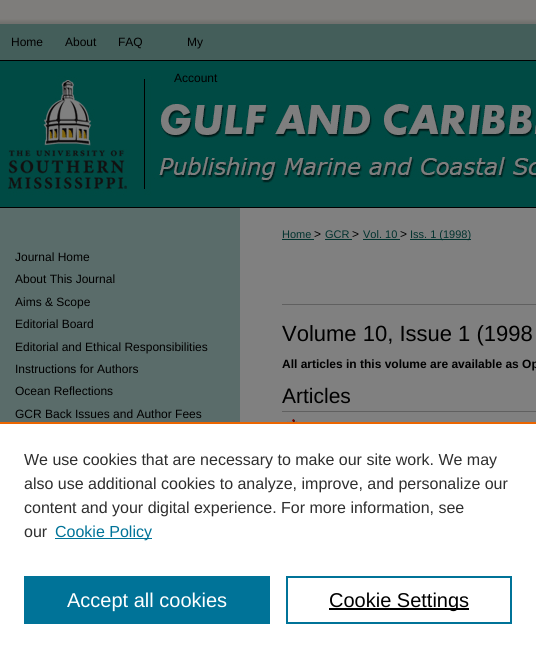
import math
import cairo

surface = cairo.ImageSurface(cairo.FORMAT_RGB24, 536, 648)
c = cairo.Context(surface)
options = cairo.FontOptions()
options.set_hint_metrics(cairo.HINT_METRICS_OFF)
options.set_hint_style(cairo.HINT_STYLE_NONE)
c.set_font_options(options)
c.set_miter_limit(4)
def C(code):
 c.set_source_rgb(*(v / 255 for v in bytes.fromhex(code[-6:])))
def F(family, size, italic, bold):
 c.select_font_face(family, cairo.FONT_SLANT_ITALIC if italic else cairo.FONT_SLANT_NORMAL, cairo.FONT_WEIGHT_BOLD if bold else cairo.FONT_WEIGHT_NORMAL)
 c.set_font_size(size)
def T(x, y, s):
 c.move_to(x, y)
 c.show_text(s)
def R(x, y, w, h):
 c.rectangle(x, y, w, h)
 c.fill()
def Q(x, y, w, h, r):
 c.new_sub_path()
 for i, (u, v) in enumerate([(x + w - r, y + h - r), (x + r, y + h - r), (x + r, y + r), (x + w - r, y + r)]):
  c.arc(u, v, r, i * math.pi / 2, (i + 1) * math.pi / 2)
 c.close_path()
def S(x, y, w, h, r, blur, alpha):
 c.push_group_with_content(cairo.CONTENT_ALPHA)
 c.set_operator(cairo.OPERATOR_SOURCE)
 for i in range(15, -16, -2):
  e = blur * i / 6
  if min(w, h) + 2 * e > 0:
   c.set_source_rgba(0, 0, 0, alpha * math.erfc((i - 1) / 8.5) / 2)
   Q(x - e, y - e, w + 2 * e, h + 2 * e, max(0, min(r + e + blur * .6, min(w, h) / 2 + e)))
   c.fill()
 c.mask(c.pop_group())
def I(path, x, y, w, h):
 c.save()
 c.set_source_surface(cairo.ImageSurface.create_from_png(path), x, y)
 c.rectangle(x, y, w, h)
 c.fill()
 c.restore()
C('7e7d7b')
c.paint()
C('706f6d')
S(-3,21,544,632,0,1.5,1)
C('445e5a')
R(0,24,536,36)
F('Liberation Sans',12,0,0)
C('000000')
T(11,46,'Home')
T(65,46,'About')
T(118,46,'FAQ')
T(187,46,'My')
I('2.png',143,60,393,148)
T(174,82,'Account')
I('1.png',0,60,143,148)
C('5a6c6a')
R(0,208,240,214)
C('808080')
R(240,208,296,214)
C('000000')
T(15,261,'Journal Home')
T(15,283,'About This Journal')
T(15,306,'Aims & Scope')
T(15,328,'Editorial Board')
T(15,351,'Editorial and Ethical Responsibilities')
T(15,373,'Instructions for Authors')
T(15,395,'Ocean Reflections')
T(15,418,'GCR Back Issues and Author Fees')
F('Liberation Sans',11,0,0)
C('00322e')
T(282,238,'Home')
R(282,239,32,1)
F('Liberation Sans',12,0,0)
C('000000')
T(314,238,'>')
F('Liberation Sans',11,0,0)
C('00322e')
T(325,238,'GCR')
R(325,239,27,1)
F('Liberation Sans',12,0,0)
C('000000')
T(352,238,'>')
F('Liberation Sans',11,0,0)
C('00322e')
T(363,238,'Vol. 10')
R(363,239,37,1)
F('Liberation Sans',12,0,0)
C('000000')
T(400,238,'>')
C('00322e')
R(410,239,61,1)
F('Liberation Sans',11,0,0)
T(410,238,'Iss. 1 (1998)')
C('606060')
R(282,304,254,1)
F('Liberation Sans',22,0,0)
C('000000')
T(282,341,'Volume 10, Issue 1 (1998')
F('Liberation Sans',12,0,1)
T(282,368,'All articles in this volume are available as Op')
C('606060')
R(282,411,254,1)
F('Liberation Sans',21,0,0)
C('000000')
T(282,403,'Articles')
I('3.png',287,419,11,3)
C('ffffff')
R(0,424,536,224)
C('eb6500')
R(0,422,536,2)
F('Liberation Sans',16,0,0)
C('2e2e2e')
T(24,465,'We use cookies that are necessary to make our site work. We may')
T(24,489,'also use additional cookies to analyze, improve, and personalize our')
T(24,513,'content and your digital experience. For more information, see')
T(24,537,'our')
C('007398')
R(55,538,97,1)
T(55,537,'Cookie Policy')
R(24,576,246,48)
F('Liberation Sans',20,0,0)
C('ffffff')
T(67,607,'Accept all cookies')
c.rectangle(287,577,224,46)
C('007398')
c.stroke()
C('000000')
R(329,608,140,2)
T(329,607,'Cookie Settings')
surface.write_to_png('o.png')
